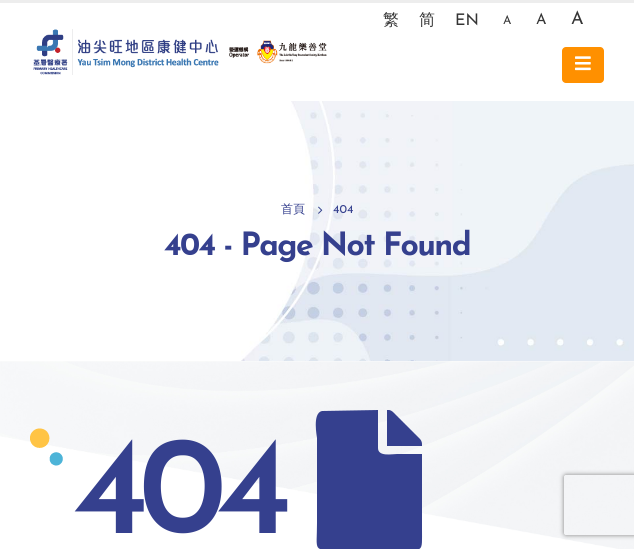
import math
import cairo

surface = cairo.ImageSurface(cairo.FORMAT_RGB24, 634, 549)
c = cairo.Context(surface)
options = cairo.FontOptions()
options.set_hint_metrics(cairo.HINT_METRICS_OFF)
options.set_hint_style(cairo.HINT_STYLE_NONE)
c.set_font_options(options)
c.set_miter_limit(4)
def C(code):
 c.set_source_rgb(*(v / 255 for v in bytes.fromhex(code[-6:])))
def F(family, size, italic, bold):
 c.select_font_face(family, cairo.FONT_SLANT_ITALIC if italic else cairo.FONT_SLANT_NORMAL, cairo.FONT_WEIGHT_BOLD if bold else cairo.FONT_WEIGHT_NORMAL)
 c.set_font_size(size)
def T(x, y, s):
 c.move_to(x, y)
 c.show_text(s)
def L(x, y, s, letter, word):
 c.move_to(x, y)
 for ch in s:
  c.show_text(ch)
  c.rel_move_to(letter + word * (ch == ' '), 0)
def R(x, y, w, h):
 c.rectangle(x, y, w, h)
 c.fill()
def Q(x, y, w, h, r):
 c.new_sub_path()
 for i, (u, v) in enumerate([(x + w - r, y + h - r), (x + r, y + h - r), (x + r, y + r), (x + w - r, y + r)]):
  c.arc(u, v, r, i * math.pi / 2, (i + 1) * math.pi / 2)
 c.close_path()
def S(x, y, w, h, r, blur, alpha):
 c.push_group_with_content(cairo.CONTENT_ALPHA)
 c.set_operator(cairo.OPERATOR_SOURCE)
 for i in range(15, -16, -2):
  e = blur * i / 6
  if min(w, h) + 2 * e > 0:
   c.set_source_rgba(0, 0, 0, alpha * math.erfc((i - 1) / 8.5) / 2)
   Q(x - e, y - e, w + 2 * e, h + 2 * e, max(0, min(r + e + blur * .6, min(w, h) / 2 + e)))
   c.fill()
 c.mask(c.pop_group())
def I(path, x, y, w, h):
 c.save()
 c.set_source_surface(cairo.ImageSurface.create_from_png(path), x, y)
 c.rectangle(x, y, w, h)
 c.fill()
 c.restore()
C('ffffff')
c.paint()
C('ededed')
R(0,0,634,3)
F('WenQuanYi Zen Hei Medium',16,0,0)
C('353535')
T(383,25,'繁')
T(419,25,'简')
F('Josefin Sans',16,0,0)
T(455,25,'EN')
F('Josefin Sans',12,0,0)
T(503,24,'A')
F('Josefin Sans',15,0,0)
T(536,24,'A')
F('Josefin Sans',18,0,0)
T(571,24,'A')
C('ff9000')
Q(562,47,42,36,4)
c.fill()
I('1.png',575,56,16,15)
I('2.png',33,29,294,46)
I('3.png',241,101,393,260)
F('WenQuanYi Zen Hei Medium',12,0,0)
C('35408e')
T(281,213,'首頁')
I('4.png',318,206,5,8)
F('Josefin Sans',12,0,0)
T(333,213,'404')
F('Josefin Sans',32,0,1)
L(164,255,'404 - Page Not Found',-1.6,0)
I('5.png',0,361,634,188)
I('6.png',30,428,33,38)
F('Josefin Sans SemiBold',140,0,0)
L(73,533,'404',-10,0)
c.new_path()
c.move_to(378,448)
c.curve_to(378,457,392,454,397,454)
c.line_to(422,454)
c.line_to(422,529)
c.curve_to(422,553,424,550,400,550)
c.line_to(339,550)
c.curve_to(312,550,317,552,317,523)
c.line_to(317,438)
c.curve_to(317,437,312,413,322,411)
c.line_to(378,410)
c.close_path()
c.move_to(422,444)
c.line_to(422,446)
c.line_to(387,446)
c.line_to(387,410)
c.line_to(389,410)
c.curve_to(390,410,392,411,393,412)
c.line_to(420,439)
c.curve_to(421,440,422,442,422,444)
c.close_path()
c.fill()
c.save()
c.set_fill_rule(cairo.FILL_RULE_EVEN_ODD)
c.new_path()
c.move_to(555,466)
c.line_to(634,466)
c.line_to(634,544)
c.line_to(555,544)
c.close_path()
c.move_to(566,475)
c.line_to(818,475)
c.curve_to(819,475,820,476,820,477)
c.line_to(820,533)
c.curve_to(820,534,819,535,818,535)
c.line_to(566,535)
c.curve_to(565,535,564,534,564,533)
c.line_to(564,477)
c.curve_to(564,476,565,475,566,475)
c.close_path()
c.clip()
C('808080')
S(564,475,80,60,2,2.5,1)
c.restore()
surface.write_to_png('o.png')
